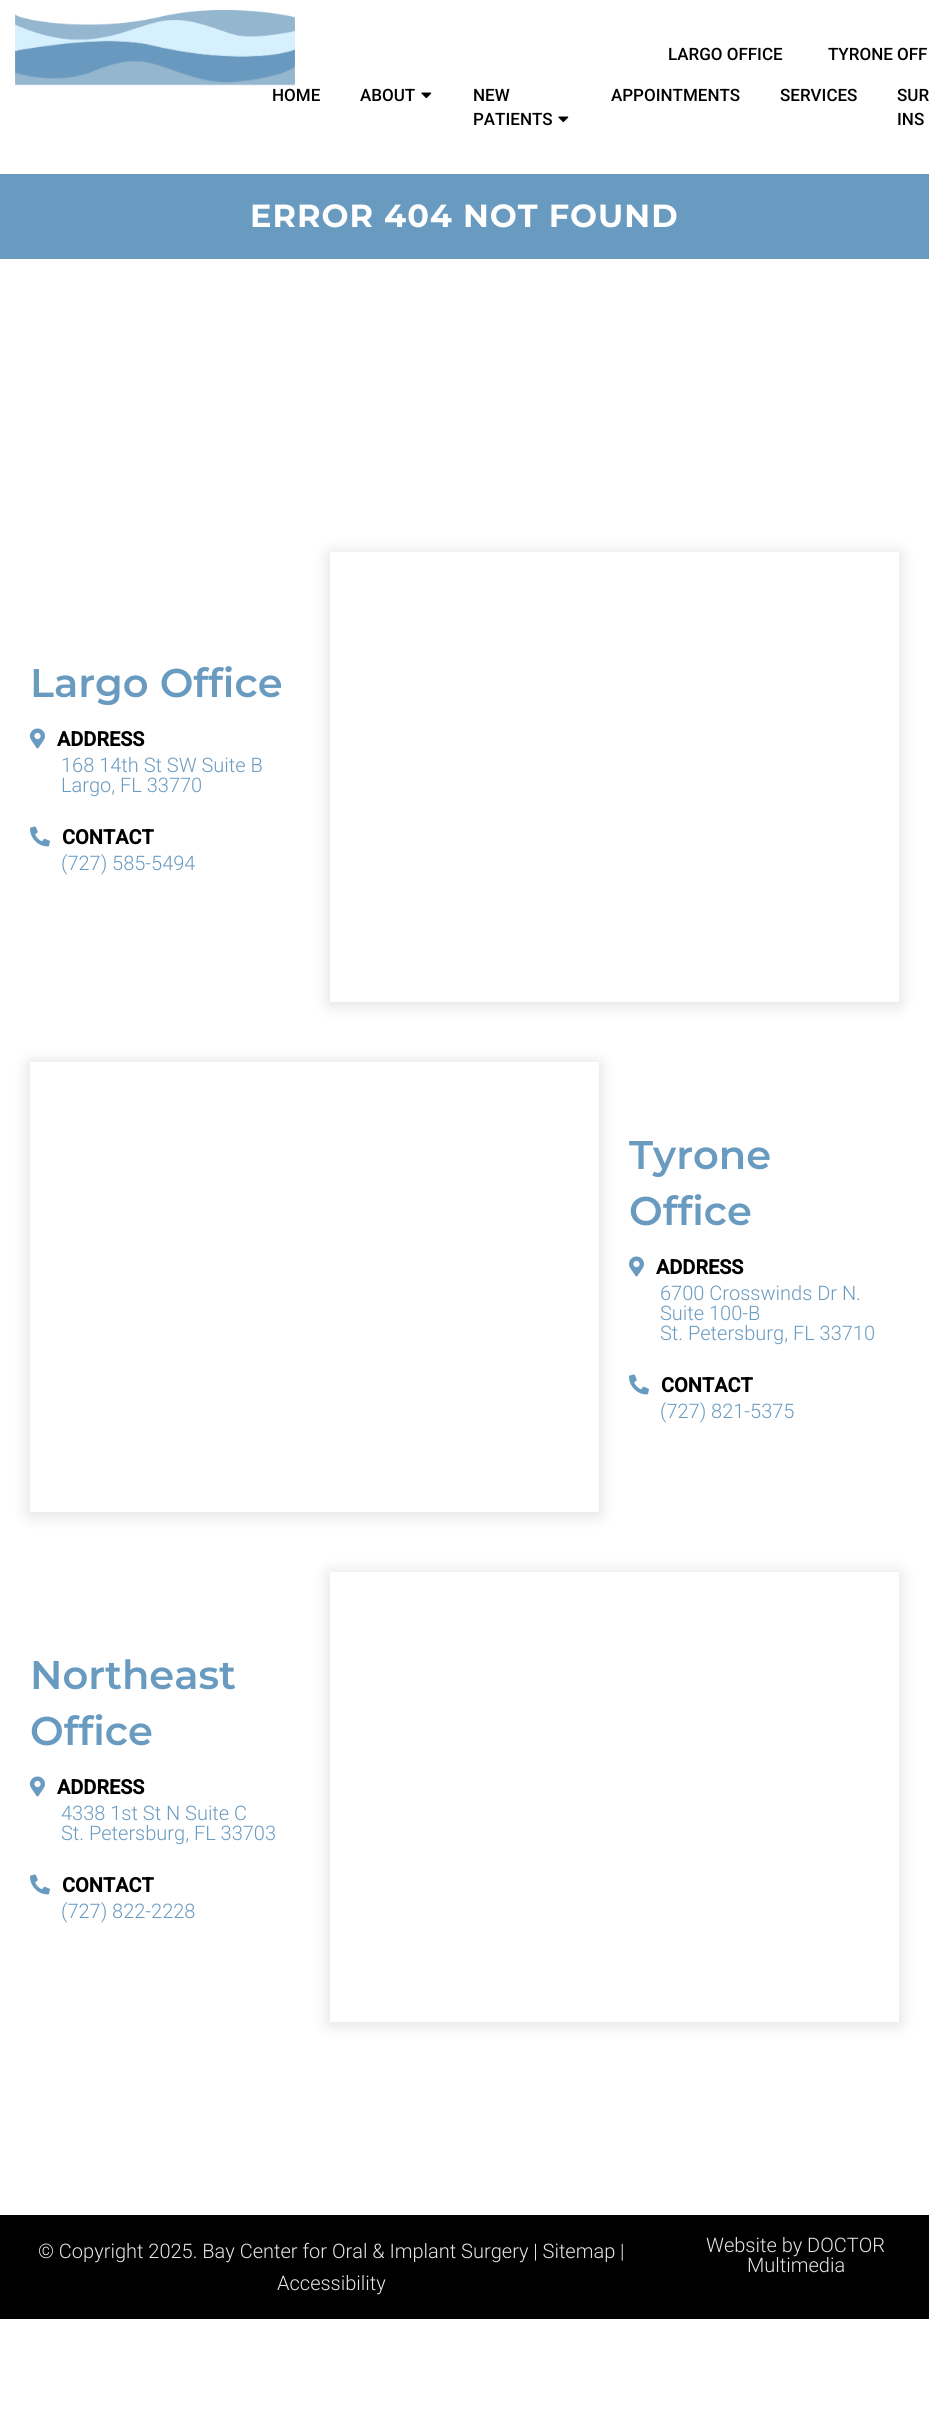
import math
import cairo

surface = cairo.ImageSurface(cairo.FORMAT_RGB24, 929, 2414)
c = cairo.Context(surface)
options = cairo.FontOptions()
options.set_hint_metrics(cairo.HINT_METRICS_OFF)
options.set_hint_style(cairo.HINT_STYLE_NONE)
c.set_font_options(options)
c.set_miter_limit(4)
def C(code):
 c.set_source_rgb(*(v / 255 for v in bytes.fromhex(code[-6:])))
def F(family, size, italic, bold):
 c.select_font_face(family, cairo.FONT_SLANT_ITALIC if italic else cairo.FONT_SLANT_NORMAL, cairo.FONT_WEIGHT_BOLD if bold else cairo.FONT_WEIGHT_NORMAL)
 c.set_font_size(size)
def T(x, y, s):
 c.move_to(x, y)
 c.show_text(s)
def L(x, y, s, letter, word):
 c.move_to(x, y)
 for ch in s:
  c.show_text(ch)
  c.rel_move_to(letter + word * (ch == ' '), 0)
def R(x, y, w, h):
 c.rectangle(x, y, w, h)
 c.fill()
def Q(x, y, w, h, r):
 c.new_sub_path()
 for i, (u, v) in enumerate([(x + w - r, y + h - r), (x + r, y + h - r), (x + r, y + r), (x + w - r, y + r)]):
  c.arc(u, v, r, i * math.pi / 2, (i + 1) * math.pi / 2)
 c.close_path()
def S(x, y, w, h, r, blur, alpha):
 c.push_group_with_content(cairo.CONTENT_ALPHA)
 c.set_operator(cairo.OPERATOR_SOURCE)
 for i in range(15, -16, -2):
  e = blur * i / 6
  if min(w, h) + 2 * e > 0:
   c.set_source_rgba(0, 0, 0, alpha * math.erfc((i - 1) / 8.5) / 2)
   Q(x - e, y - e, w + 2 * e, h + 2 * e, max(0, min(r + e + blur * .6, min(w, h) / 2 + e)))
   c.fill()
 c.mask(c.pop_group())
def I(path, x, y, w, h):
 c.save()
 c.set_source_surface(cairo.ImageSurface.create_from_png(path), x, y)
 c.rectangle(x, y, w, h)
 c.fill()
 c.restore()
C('ffffff')
c.paint()
I('1.png',15,10,280,76)
F('Roboto Medium',17,0,0)
C('000000')
T(668,60,'LARGO OFFICE')
T(828,60,'TYRONE OFF')
T(272,101,'HOME')
T(360,101,'ABOUT')
I('2.png',421,92,11,7)
T(473,101,'NEW')
T(473,125,'PATIENTS')
I('2.png',558,116,11,7)
T(611,101,'APPOINTMENTS')
T(780,101,'SERVICES')
T(897,101,'SUR')
T(897,125,'INS')
C('699ac0')
R(0,174,929,85)
F('Montserrat',32,0,1)
C('ffffff')
L(250,227,'ERROR 404 NOT FOUND',1,0)
F('Montserrat SemiBold',40,0,0)
C('699ac0')
T(30,697,'Largo Office')
I('3.png',30,728,15,21)
F('Roboto',20,0,1)
C('000000')
T(57,746,'ADDRESS')
F('Roboto Light',20,0,0)
C('699ac0')
T(61,772,'168 14th St SW Suite B')
T(61,792,'Largo, FL 33770')
I('4.png',30,826,20,21)
F('Roboto',20,0,1)
C('000000')
T(62,844,'CONTACT')
F('Roboto Light',20,0,0)
C('699ac0')
T(61,870,'(727) 585-5494')
c.save()
c.set_fill_rule(cairo.FILL_RULE_EVEN_ODD)
c.new_path()
c.move_to(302,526)
c.line_to(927,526)
c.line_to(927,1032)
c.line_to(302,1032)
c.close_path()
c.move_to(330,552)
c.line_to(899,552)
c.line_to(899,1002)
c.line_to(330,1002)
c.close_path()
c.clip()
C('000000')
S(330,554,569,450,0,9,.14)
c.restore()
c.save()
c.set_fill_rule(cairo.FILL_RULE_EVEN_ODD)
c.new_path()
c.move_to(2,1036)
c.line_to(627,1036)
c.line_to(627,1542)
c.line_to(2,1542)
c.close_path()
c.move_to(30,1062)
c.line_to(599,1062)
c.line_to(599,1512)
c.line_to(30,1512)
c.close_path()
c.clip()
C('000000')
S(30,1064,569,450,0,9,.14)
c.restore()
F('Montserrat SemiBold',40,0,0)
T(629,1169,'Tyrone')
T(629,1225,'Office')
I('3.png',629,1256,15,21)
F('Roboto',20,0,1)
C('000000')
T(656,1274,'ADDRESS')
F('Roboto Light',20,0,0)
C('699ac0')
T(660,1300,'6700 Crosswinds Dr N.')
T(660,1320,'Suite 100-B')
T(660,1340,'St. Petersburg, FL 33710')
I('4.png',629,1374,20,21)
F('Roboto',20,0,1)
C('000000')
T(661,1392,'CONTACT')
F('Roboto Light',20,0,0)
C('699ac0')
T(660,1418,'(727) 821-5375')
F('Montserrat SemiBold',40,0,0)
T(30,1689,'Northeast')
T(30,1745,'Office')
I('3.png',30,1776,15,21)
F('Roboto',20,0,1)
C('000000')
T(57,1794,'ADDRESS')
F('Roboto Light',20,0,0)
C('699ac0')
T(61,1820,'4338 1st St N Suite C')
T(61,1840,'St. Petersburg, FL 33703')
I('4.png',30,1874,20,21)
F('Roboto',20,0,1)
C('000000')
T(62,1892,'CONTACT')
F('Roboto Light',20,0,0)
C('699ac0')
T(61,1918,'(727) 822-2228')
c.save()
c.set_fill_rule(cairo.FILL_RULE_EVEN_ODD)
c.new_path()
c.move_to(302,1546)
c.line_to(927,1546)
c.line_to(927,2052)
c.line_to(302,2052)
c.close_path()
c.move_to(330,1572)
c.line_to(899,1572)
c.line_to(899,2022)
c.line_to(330,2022)
c.close_path()
c.clip()
C('000000')
S(330,1574,569,450,0,9,.14)
c.restore()
C('000000')
R(0,2215,929,104)
C('e6e6e6')
T(38,2258,'© Copyright 2025. Bay Center for Oral & Implant Surgery | Sitemap |')
T(277,2290,'Accessibility')
T(706,2252,'Website by DOCTOR')
T(747,2272,'Multimedia')
surface.write_to_png('o.png')
